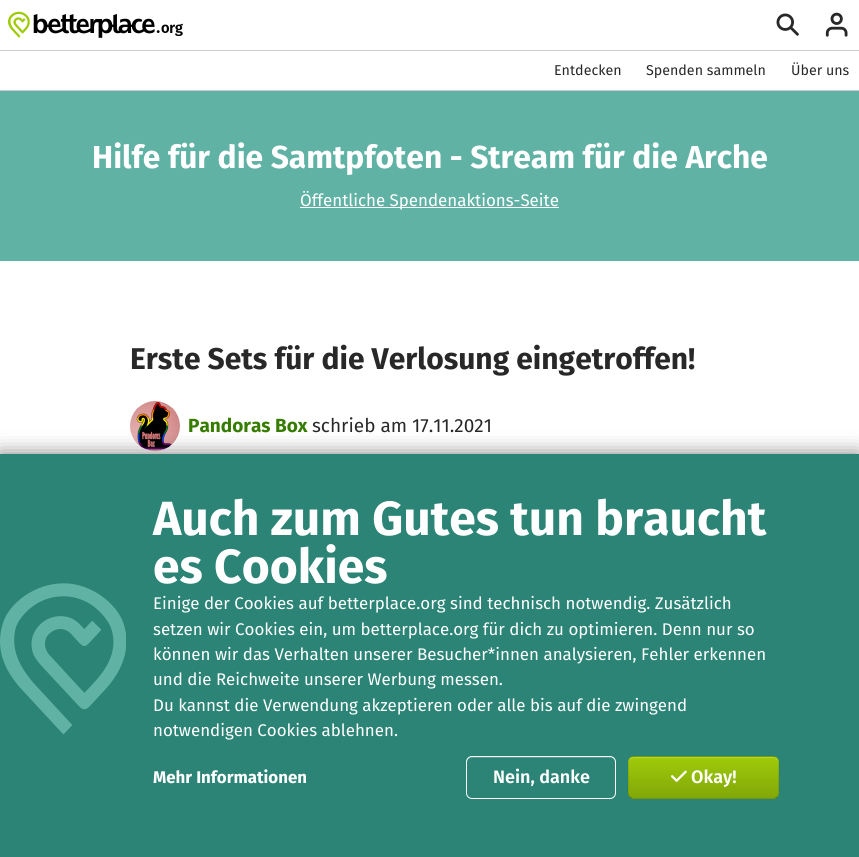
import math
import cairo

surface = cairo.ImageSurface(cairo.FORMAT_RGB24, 859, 857)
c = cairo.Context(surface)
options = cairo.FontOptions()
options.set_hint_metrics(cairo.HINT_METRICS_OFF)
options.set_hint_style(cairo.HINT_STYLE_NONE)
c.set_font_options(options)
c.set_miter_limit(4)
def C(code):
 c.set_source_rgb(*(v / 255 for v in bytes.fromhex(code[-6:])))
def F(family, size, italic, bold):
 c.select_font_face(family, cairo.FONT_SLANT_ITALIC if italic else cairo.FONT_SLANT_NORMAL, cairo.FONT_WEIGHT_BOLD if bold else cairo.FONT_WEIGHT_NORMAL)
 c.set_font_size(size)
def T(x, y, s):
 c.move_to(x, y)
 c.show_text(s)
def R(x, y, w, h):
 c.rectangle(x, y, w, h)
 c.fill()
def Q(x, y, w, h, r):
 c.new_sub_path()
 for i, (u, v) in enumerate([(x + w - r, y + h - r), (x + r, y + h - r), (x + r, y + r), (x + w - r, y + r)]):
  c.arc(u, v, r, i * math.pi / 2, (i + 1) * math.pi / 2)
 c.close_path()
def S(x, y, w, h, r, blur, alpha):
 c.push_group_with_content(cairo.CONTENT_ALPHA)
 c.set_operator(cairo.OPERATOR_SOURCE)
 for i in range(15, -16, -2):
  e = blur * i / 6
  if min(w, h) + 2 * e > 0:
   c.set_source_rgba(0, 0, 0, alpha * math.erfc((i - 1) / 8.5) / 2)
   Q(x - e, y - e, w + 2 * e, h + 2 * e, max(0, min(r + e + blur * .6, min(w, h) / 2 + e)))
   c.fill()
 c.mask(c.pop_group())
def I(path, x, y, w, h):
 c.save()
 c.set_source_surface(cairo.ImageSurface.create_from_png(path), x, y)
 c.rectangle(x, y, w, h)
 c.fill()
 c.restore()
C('ffffff')
c.paint()
C('cccccc')
R(0,90,859,1)
I('1.png',8,11,175,27)
I('2.png',776,13,23,23)
I('3.png',825,12,23,25)
R(0,50,859,1)
F('Fira Sans',14.25,0,0)
C('282828')
T(554,75,'Entdecken')
T(646,75,'Spenden sammeln')
T(791,75,'Über uns')
C('60b2a4')
R(0,91,859,170)
F('Fira Sans',31.75,0,1)
C('ffffff')
T(92,168,'Hilfe für die Samtpfoten - Stream für die Arche')
R(300,207,259,1)
F('Fira Sans',16.9,0,0)
T(300,206,'Öffentliche Spendenaktions-Seite')
F('Fira Sans',30,0,1)
C('282828')
T(130,369,'Erste Sets für die Verlosung eingetroffen!')
I('4.png',130,401,50,50)
F('Fira Sans',19,0,1)
C('357c00')
T(188,432,'Pandoras Box')
F('Fira Sans',19,0,0)
C('282828')
T(312,432,'schrieb am 17.11.2021')
C('000000')
S(0,454,859,403,0,10,.5)
C('2b8475')
R(0,454,859,403)
I('5.png',0,583,126,152)
F('Fira Sans',48,0,1)
C('ffffff')
T(153,535,'Auch zum Gutes tun braucht')
T(153,583,'es Cookies')
F('Fira Sans',16.9,0,0)
T(153,609,'Einige der Cookies auf betterplace.org sind technisch notwendig. Zusätzlich')
T(153,635,'setzen wir Cookies ein, um betterplace.org für dich zu optimieren. Denn nur so')
T(153,660,'können wir das Verhalten unserer Besucher*innen analysieren, Fehler erkennen')
T(153,685,'und die Reichweite unserer Werbung messen.')
T(153,711,'Du kannst die Verwendung akzeptieren oder alle bis auf die zwingend')
T(153,736,'notwendigen Cookies ablehnen.')
F('Fira Sans',16.9,0,1)
T(153,783,'Mehr Informationen')
C('559d91')
c.new_path()
c.move_to(472,758)
c.line_to(610,758)
c.curve_to(613,758,615,760,615,763)
c.line_to(615,762)
c.curve_to(615,759,613,757,610,757)
c.line_to(472,757)
c.curve_to(469,757,467,759,467,762)
c.line_to(467,763)
c.curve_to(467,760,469,758,472,758)
c.close_path()
c.fill()
Q(466.5,756.5,149,42,5.5)
C('ffffff')
c.set_line_width(1)
c.stroke()
F('Fira Sans SemiBold',18,0,0)
T(493,783,'Nein, danke')
c.save()
Q(628,756,151,43,6)
c.clip()
gradient = cairo.LinearGradient(704,716,704,757)
gradient.add_color_stop_rgba(0,0.62,0.796,0.039,1)
gradient.add_color_stop_rgba(1,0.51,0.655,0.031,1)
c.set_source(gradient)
R(628,756,151,1)
gradient = cairo.LinearGradient(704,757,704,798)
gradient.add_color_stop_rgba(0,0.62,0.796,0.039,1)
gradient.add_color_stop_rgba(1,0.51,0.655,0.031,1)
c.set_source(gradient)
R(628,757,151,41)
gradient = cairo.LinearGradient(704,798,704,839)
gradient.add_color_stop_rgba(0,0.62,0.796,0.039,1)
gradient.add_color_stop_rgba(1,0.51,0.655,0.031,1)
c.set_source(gradient)
R(628,798,151,1)
c.restore()
C('b1d53b')
c.new_path()
c.move_to(634,758)
c.line_to(773,758)
c.curve_to(776,758,778,760,778,763)
c.line_to(778,762)
c.curve_to(778,759,776,757,773,757)
c.line_to(634,757)
c.curve_to(631,757,629,759,629,762)
c.line_to(629,763)
c.curve_to(629,760,631,758,634,758)
c.close_path()
c.fill()
c.new_path()
c.move_to(777,797)
c.curve_to(776,798,774.5,798.5,773,798.5)
c.line_to(634,798.5)
c.curve_to(632.5,798.5,631,798,630,797)
c.set_source_rgba(0,0,0,0.25)
c.stroke()
c.new_path()
c.move_to(630,797)
c.curve_to(627,793.5,628.5,786.5,628.5,782.5)
c.curve_to(628.5,751.5,623.5,756.5,657,756.5)
c.line_to(750,756.5)
c.curve_to(783.5,756.5,778.5,751.5,778.5,782.5)
c.curve_to(778.5,786.5,780,793.5,777,797)
c.set_source_rgba(0,0,0,0.1)
c.stroke()
I('6.png',671,770,16,12)
C('ffffff')
T(691,783,'Okay!')
surface.write_to_png('o.png')
